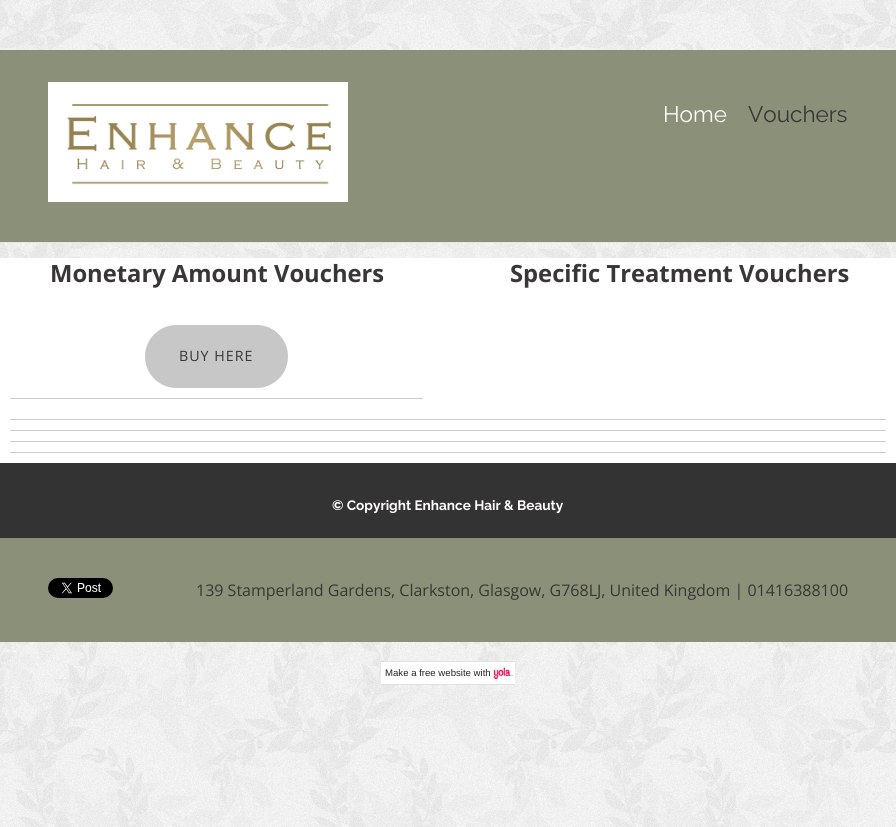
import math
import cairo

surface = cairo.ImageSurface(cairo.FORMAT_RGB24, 896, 827)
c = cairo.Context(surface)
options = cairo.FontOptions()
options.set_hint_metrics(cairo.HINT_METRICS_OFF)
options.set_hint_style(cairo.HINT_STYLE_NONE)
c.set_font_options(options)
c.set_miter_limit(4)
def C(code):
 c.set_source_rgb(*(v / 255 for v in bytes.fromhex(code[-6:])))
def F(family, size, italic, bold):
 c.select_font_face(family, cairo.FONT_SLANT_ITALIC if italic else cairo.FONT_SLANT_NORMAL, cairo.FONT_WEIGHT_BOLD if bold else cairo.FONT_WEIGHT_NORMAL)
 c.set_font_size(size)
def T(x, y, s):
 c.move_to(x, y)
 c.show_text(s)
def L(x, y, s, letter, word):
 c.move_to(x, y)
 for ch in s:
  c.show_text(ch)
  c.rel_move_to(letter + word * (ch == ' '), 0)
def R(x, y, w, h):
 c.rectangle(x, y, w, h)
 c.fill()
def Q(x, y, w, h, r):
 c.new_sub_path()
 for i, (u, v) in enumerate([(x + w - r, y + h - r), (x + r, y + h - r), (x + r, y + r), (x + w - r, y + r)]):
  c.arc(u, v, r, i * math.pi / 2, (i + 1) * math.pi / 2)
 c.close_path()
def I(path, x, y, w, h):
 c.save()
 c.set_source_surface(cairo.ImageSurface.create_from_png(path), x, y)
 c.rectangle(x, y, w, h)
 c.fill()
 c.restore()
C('ffffff')
c.paint()
I('1.png',0,0,896,827)
C('8a9178')
R(0,50,896,192)
I('2.png',48,82,300,120)
F('Raleway',22.5,0,0)
C('fffcfc')
T(663,122,'Home')
C('383636')
T(748,122,'Vouchers')
C('e7e7e7')
R(4,242,892,1)
C('ffffff')
R(0,258,896,205)
F('Open Sans',23.75,0,1)
C('383636')
T(50,282,'Monetary Amount Vouchers')
C('c7c7c7')
Q(146,326,141,61,30.5)
c.fill_preserve()
c.stroke()
F('Open Sans',14.25,0,0)
C('383636')
L(179,361,'BUY HERE',1,0)
C('cccccc')
R(10,398,413,1)
F('Open Sans',23.75,0,1)
C('383636')
T(510,282,'Specific Treatment Vouchers')
C('cccccc')
R(10,419,876,1)
R(10,430,876,1)
R(10,441,876,1)
R(10,452,876,1)
C('333333')
R(0,463,896,75)
F('Raleway',13.6,0,1)
C('fffcfc')
T(332,510,'© Copyright Enhance Hair & Beauty')
C('8a9178')
R(0,538,896,104)
I('3.png',48,578,65,20)
F('Open Sans',16,0,0)
C('383636')
T(196,596,'139 Stamperland Gardens, Clarkston, Glasgow, G768LJ, United Kingdom | 01416388100')
C('ffffff')
R(381,662,134,22)
I('4.png',493,667,20,13)
C('e1e1e1')
R(381,661,134,1)
R(381,684,134,1)
F('Liberation Sans',9.6,0,0)
C('222222')
T(385,676,'Make a free website with')
surface.write_to_png('o.png')
